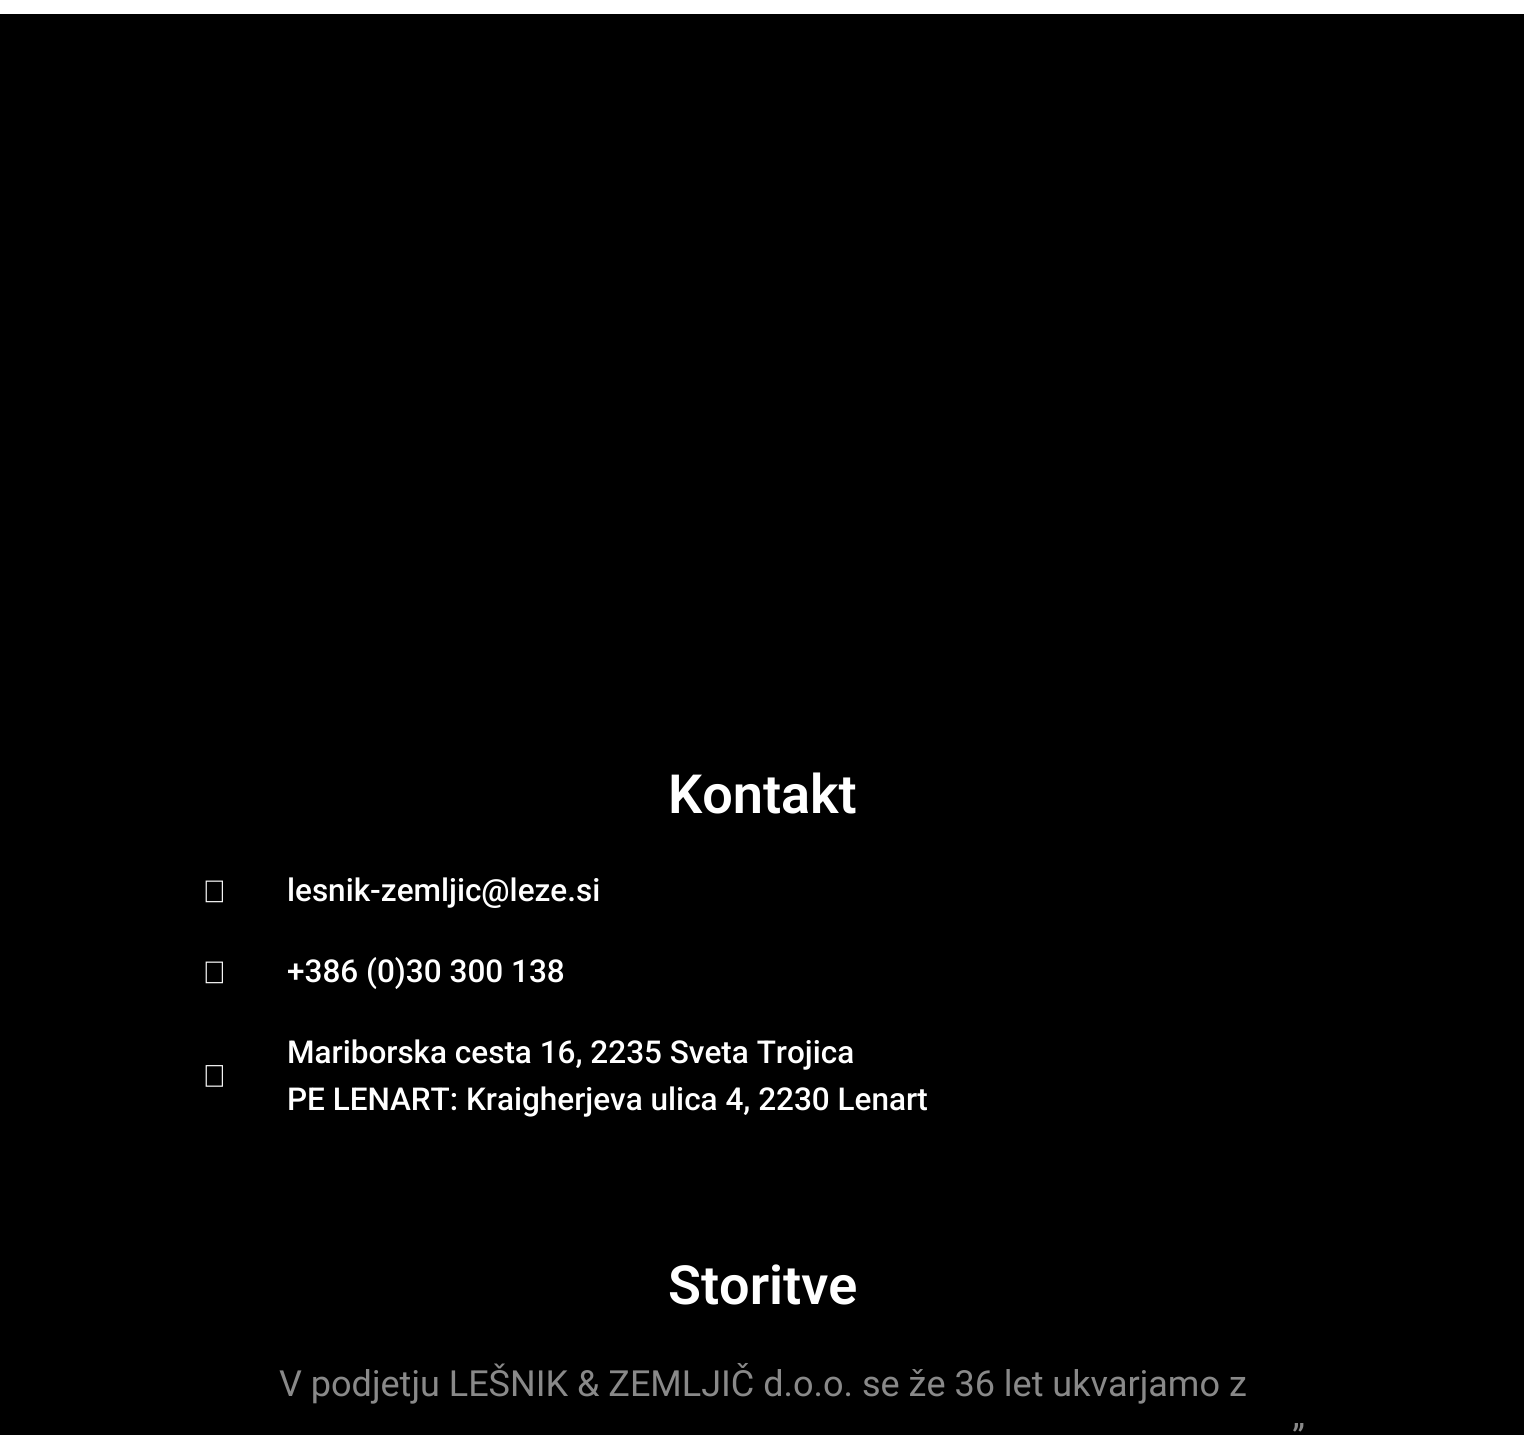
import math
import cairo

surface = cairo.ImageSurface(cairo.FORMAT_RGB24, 1524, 1435)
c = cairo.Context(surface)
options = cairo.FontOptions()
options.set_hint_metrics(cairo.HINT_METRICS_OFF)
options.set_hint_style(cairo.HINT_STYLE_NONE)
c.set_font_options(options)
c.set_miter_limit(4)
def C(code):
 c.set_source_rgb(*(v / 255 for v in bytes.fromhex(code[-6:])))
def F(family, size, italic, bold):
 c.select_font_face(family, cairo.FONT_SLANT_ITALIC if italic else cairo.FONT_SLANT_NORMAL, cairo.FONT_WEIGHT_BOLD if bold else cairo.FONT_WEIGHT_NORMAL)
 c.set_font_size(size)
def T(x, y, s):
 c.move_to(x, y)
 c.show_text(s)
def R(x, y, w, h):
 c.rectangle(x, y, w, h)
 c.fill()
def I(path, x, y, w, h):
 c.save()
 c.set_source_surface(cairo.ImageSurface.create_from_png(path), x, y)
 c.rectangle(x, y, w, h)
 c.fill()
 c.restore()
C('ffffff')
c.paint()
C('000000')
R(0,14,1524,1421)
F('Roboto SemiBold',54,0,0)
C('ffffff')
T(668,813,'Kontakt')
I('1.png',205,880,18,23)
F('Roboto Medium',31.5,0,0)
T(287,901,'lesnik-zemljic@leze.si')
I('1.png',205,961,18,23)
T(287,982,'+386 (0)30 300 138')
I('2.png',205,1065,18,22)
T(287,1063,'Mariborska cesta 16, 2235 Sveta Trojica')
T(287,1110,'PE LENART: Kraigherjeva ulica 4, 2230 Lenart')
F('Roboto SemiBold',54,0,0)
T(668,1304,'Storitve')
F('Roboto',36,0,0)
C('898989')
T(279,1396,'V podjetju LEŠNIK & ZEMLJIČ d.o.o. se že 36 let ukvarjamo z')
T(1292,1450,'”')
surface.write_to_png('o.png')
